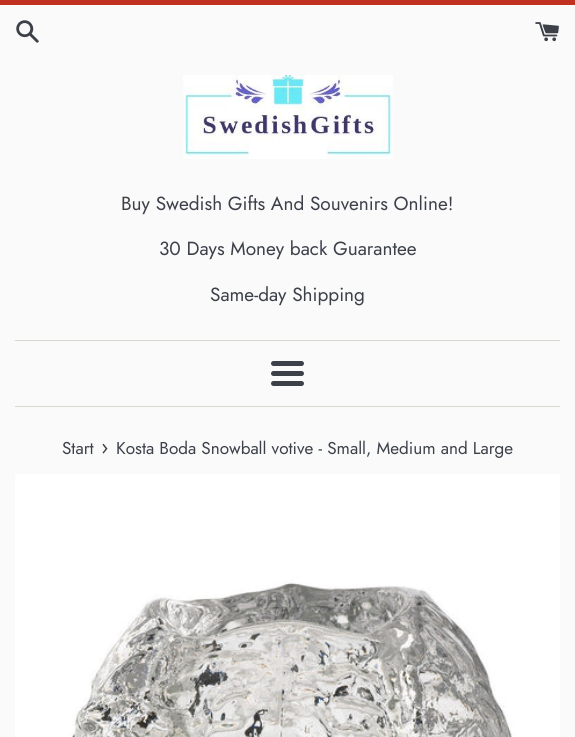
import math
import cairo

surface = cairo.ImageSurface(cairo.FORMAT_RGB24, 575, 737)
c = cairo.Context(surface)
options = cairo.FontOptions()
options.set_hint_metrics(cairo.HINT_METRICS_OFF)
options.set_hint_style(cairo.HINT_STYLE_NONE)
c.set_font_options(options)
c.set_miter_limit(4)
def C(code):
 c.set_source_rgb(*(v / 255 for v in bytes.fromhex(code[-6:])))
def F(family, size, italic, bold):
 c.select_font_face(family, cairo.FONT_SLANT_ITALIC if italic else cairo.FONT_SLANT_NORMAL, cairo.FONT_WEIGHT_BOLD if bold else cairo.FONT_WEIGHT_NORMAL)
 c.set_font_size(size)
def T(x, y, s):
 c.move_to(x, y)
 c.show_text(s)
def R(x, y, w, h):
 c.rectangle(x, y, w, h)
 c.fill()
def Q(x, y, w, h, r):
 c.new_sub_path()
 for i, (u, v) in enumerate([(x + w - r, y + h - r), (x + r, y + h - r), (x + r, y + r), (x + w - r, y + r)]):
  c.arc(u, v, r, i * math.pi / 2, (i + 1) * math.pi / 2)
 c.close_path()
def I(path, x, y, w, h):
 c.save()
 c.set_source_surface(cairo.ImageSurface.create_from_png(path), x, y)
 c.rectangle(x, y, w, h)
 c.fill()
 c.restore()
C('fafafa')
c.paint()
C('c13121')
R(0,0,575,5)
I('1.png',16,20,23,23)
I('2.png',535,22,24,20)
I('3.png',183,75,210,84)
F('Jost',19,0,0)
C('3c4049')
T(121,210,'Buy Swedish Gifts And Souvenirs Online!')
T(159,255,'30 Days Money back Guarantee')
T(210,301,'Same-day Shipping')
C('d7d8d2')
R(15,340,545,1)
C('3c4049')
Q(271,361,33,5,2.5)
c.fill()
Q(271,371,33,5,2.5)
c.fill()
Q(271,381,33,5,2.5)
c.fill()
C('d7d8d2')
R(15,406,545,1)
F('Jost',17.1,0,0)
C('3c4049')
T(62,454,'Start')
F('Jost',21,0,0)
T(101,454,'›')
F('Jost',17.1,0,0)
T(116,454,'Kosta Boda Snowball votive - Small, Medium and Large')
I('4.png',15,474,545,263)
surface.write_to_png('o.png')
